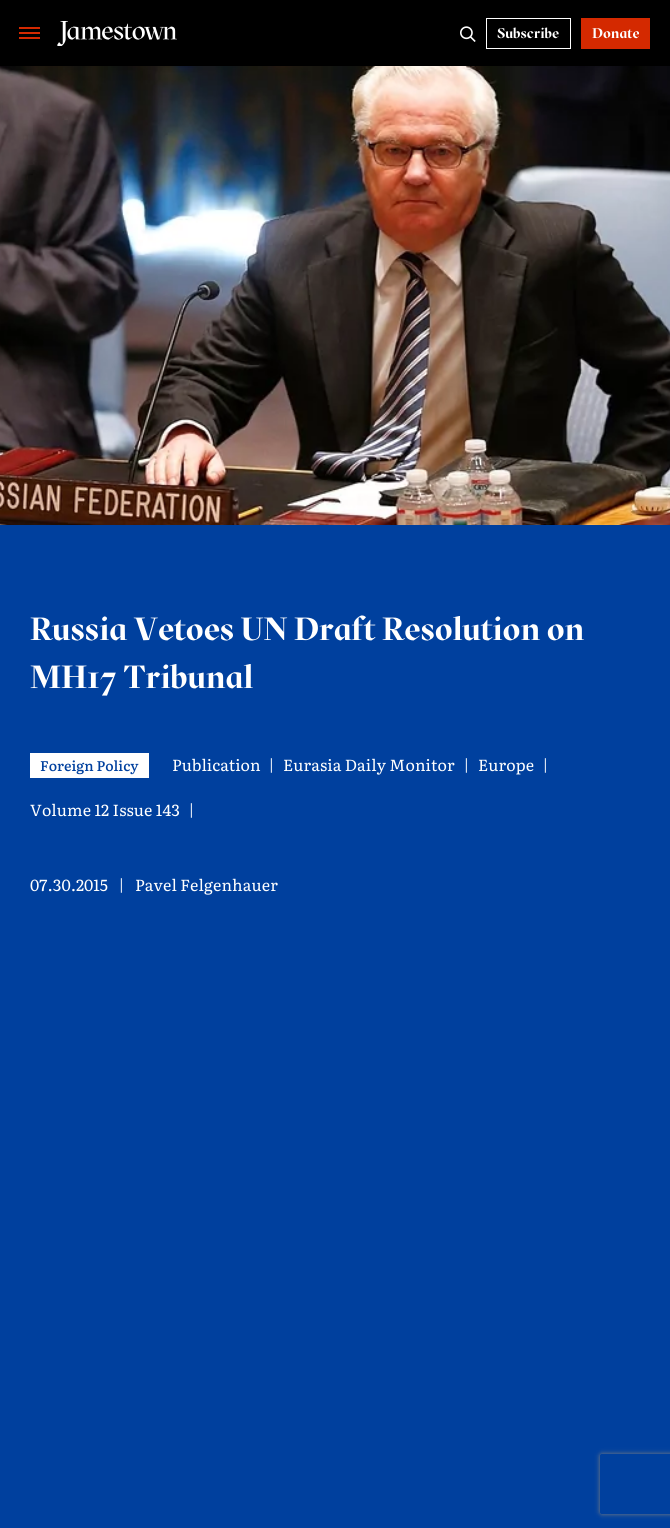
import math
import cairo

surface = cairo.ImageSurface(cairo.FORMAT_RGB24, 670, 1528)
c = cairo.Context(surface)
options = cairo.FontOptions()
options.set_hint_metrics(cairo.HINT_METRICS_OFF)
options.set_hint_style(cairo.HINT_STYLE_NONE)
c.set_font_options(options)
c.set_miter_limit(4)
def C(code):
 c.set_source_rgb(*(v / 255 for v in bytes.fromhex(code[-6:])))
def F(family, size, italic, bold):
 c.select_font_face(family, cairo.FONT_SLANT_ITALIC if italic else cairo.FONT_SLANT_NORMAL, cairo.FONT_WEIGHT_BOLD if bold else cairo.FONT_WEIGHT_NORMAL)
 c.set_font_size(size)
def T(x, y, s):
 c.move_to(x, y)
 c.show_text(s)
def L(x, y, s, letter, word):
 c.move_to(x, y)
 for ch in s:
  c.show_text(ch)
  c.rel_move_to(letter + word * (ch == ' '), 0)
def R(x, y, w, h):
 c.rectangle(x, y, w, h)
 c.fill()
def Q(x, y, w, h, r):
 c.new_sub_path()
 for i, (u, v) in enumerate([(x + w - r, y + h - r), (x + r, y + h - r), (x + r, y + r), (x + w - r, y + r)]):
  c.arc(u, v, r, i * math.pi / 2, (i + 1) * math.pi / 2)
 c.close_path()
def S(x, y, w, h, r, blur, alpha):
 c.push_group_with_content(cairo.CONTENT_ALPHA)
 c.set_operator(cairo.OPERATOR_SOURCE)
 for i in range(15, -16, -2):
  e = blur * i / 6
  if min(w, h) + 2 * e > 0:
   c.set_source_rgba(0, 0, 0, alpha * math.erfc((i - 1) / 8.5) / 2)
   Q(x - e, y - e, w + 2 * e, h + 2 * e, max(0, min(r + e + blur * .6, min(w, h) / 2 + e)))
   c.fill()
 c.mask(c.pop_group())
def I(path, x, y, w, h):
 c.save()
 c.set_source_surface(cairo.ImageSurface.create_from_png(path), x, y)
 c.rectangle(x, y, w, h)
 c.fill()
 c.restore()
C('00409e')
c.paint()
C('000000')
R(0,0,670,66)
C('d42900')
R(19,27,21,2)
R(19,32,21,2)
R(19,37,21,2)
I('1.png',57,21,120,25)
I('2.png',460,26,16,16)
c.rectangle(486.5,18.5,84,30)
C('ffffff')
c.set_line_width(1)
c.stroke()
F('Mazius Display',14,0,1)
T(497,38,'Subscribe')
C('d42900')
R(581,18,69,31)
C('ffffff')
T(592,38,'Donate')
I('3.png',0,66,670,459)
F('Mazius Display',32,0,1)
T(30,640,'Russia Vetoes UN Draft Resolution on')
T(30,688,'MH17 Tribunal')
R(30,753,119,25)
F('Literata Medium',14,0,0)
C('00409e')
T(40,771,'Foreign Policy')
F('Literata',16,0,0)
C('ffffff')
T(172,771,'Publication')
T(268,771,'|')
L(283,771,'Eurasia Daily Monitor',.1,0)
T(463,771,'|')
L(478,771,'Europe',.1,0)
T(542,771,'|')
L(30,816,'Volume 12 Issue 143',.1,0)
T(188,816,'|')
T(30,891,'07.30.2015')
T(118,891,'|')
L(135,891,'Pavel Felgenhauer',.1,0)
c.save()
c.set_fill_rule(cairo.FILL_RULE_EVEN_ODD)
c.new_path()
c.move_to(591,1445)
c.line_to(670,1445)
c.line_to(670,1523)
c.line_to(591,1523)
c.close_path()
c.move_to(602,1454)
c.line_to(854,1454)
c.curve_to(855,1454,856,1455,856,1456)
c.line_to(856,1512)
c.curve_to(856,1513,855,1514,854,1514)
c.line_to(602,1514)
c.curve_to(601,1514,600,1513,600,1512)
c.line_to(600,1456)
c.curve_to(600,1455,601,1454,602,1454)
c.close_path()
c.clip()
C('808080')
S(600,1454,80,60,2,2.5,1)
c.restore()
surface.write_to_png('o.png')
